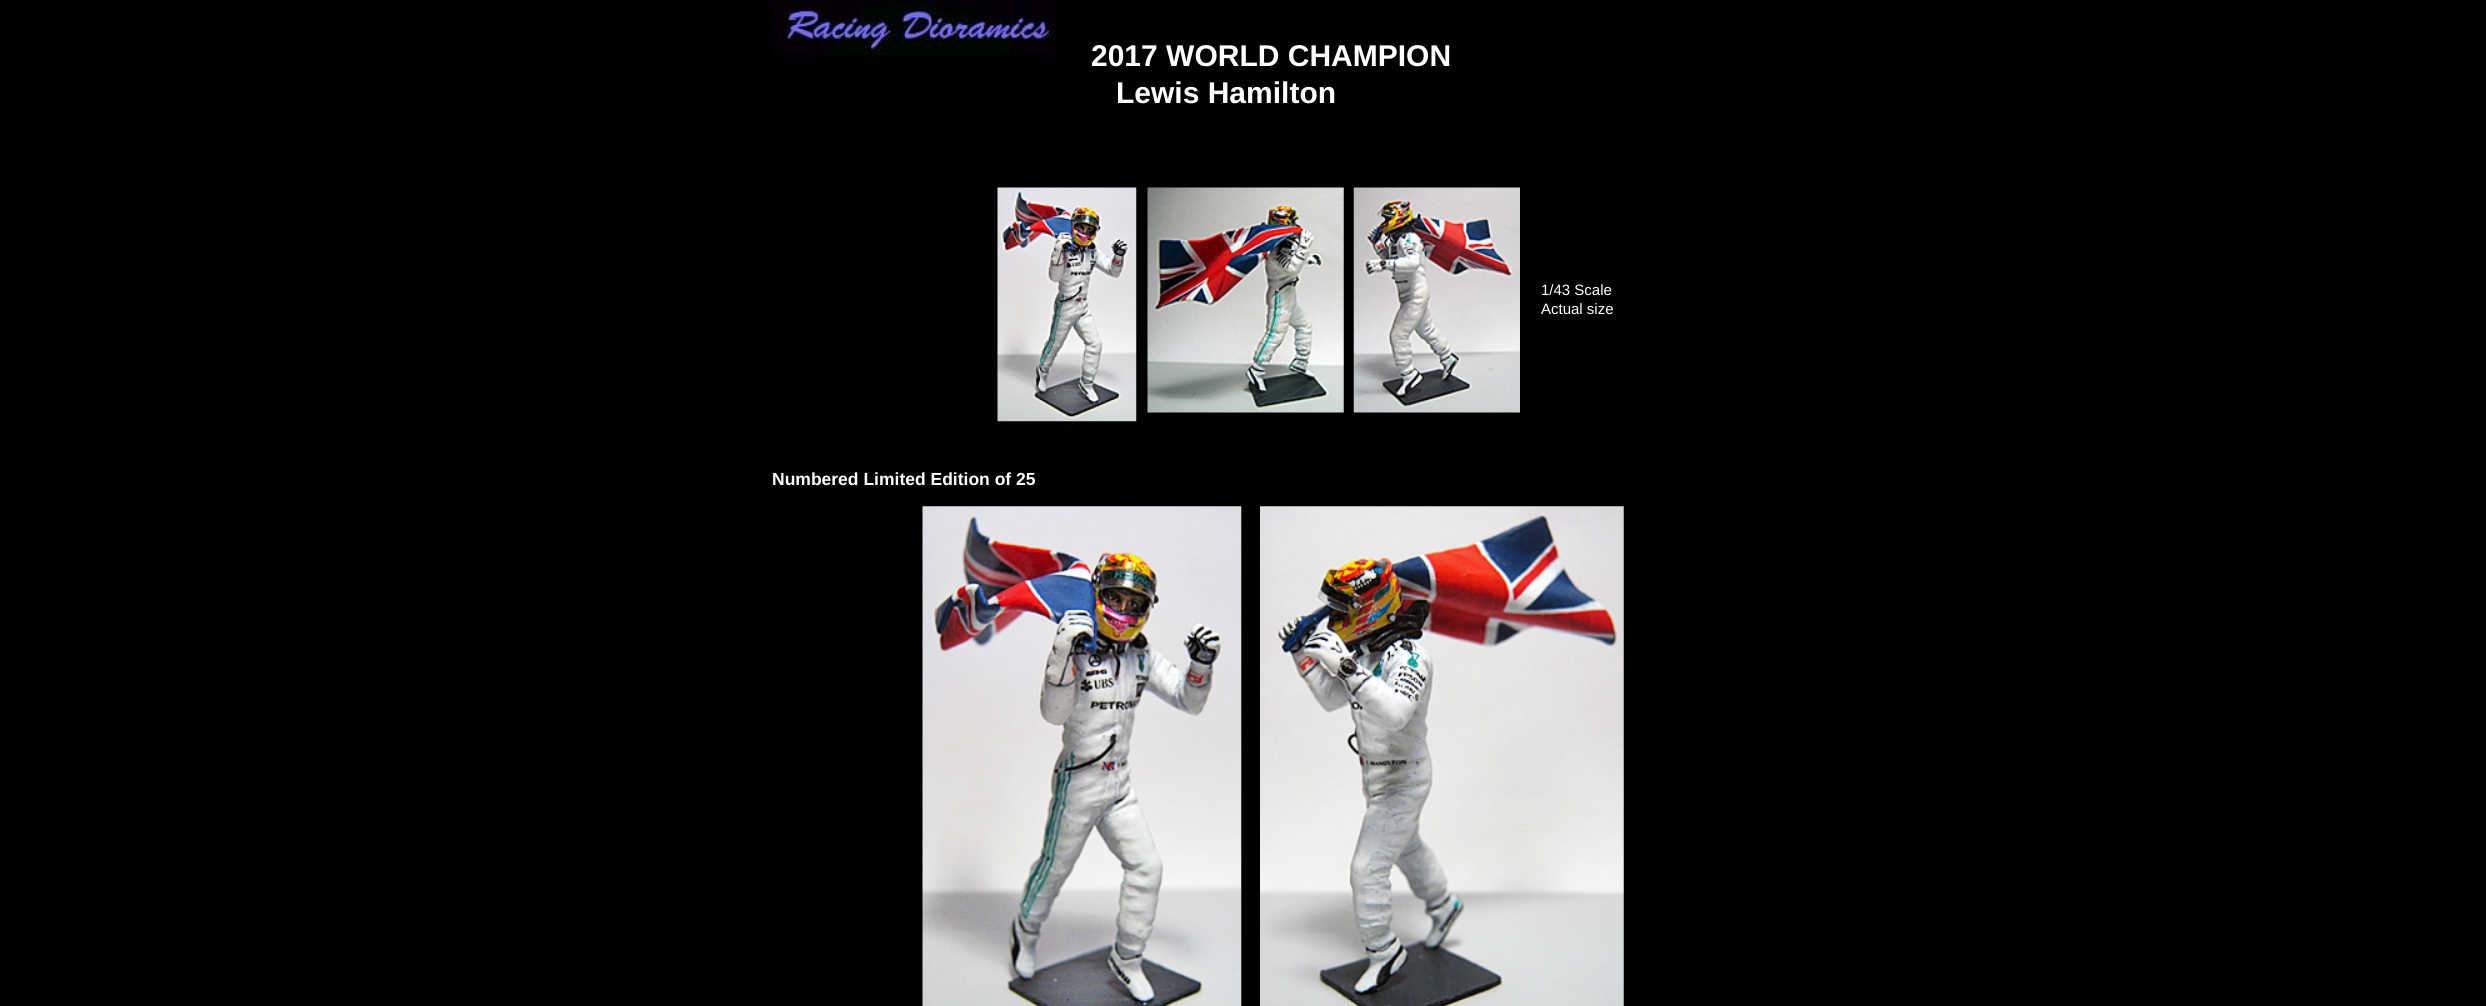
import math
import cairo

surface = cairo.ImageSurface(cairo.FORMAT_RGB24, 2486, 1006)
c = cairo.Context(surface)
options = cairo.FontOptions()
options.set_hint_metrics(cairo.HINT_METRICS_OFF)
options.set_hint_style(cairo.HINT_STYLE_NONE)
c.set_font_options(options)
c.set_miter_limit(4)
def C(code):
 c.set_source_rgb(*(v / 255 for v in bytes.fromhex(code[-6:])))
def F(family, size, italic, bold):
 c.select_font_face(family, cairo.FONT_SLANT_ITALIC if italic else cairo.FONT_SLANT_NORMAL, cairo.FONT_WEIGHT_BOLD if bold else cairo.FONT_WEIGHT_NORMAL)
 c.set_font_size(size)
def T(x, y, s):
 c.move_to(x, y)
 c.show_text(s)
def I(path, x, y, w, h):
 c.save()
 c.set_source_surface(cairo.ImageSurface.create_from_png(path), x, y)
 c.rectangle(x, y, w, h)
 c.fill()
 c.restore()
C('000000')
c.paint()
I('1.png',772,0,284,55)
F('Liberation Sans',30,0,1)
C('ffffff')
T(1091,66,'2017 WORLD CHAMPION')
T(1116,103,'Lewis Hamilton')
I('2.png',997,187,140,235)
I('3.png',1147,187,197,226)
I('4.png',1353,187,167,226)
F('Liberation Sans',15,0,0)
T(1541,295,'1/43 Scale')
T(1541,314,'Actual size')
F('Liberation Sans',17.5,0,1)
T(772,485,'Numbered Limited Edition of 25')
I('5.png',922,506,320,500)
I('6.png',1260,506,364,500)
surface.write_to_png('o.png')
